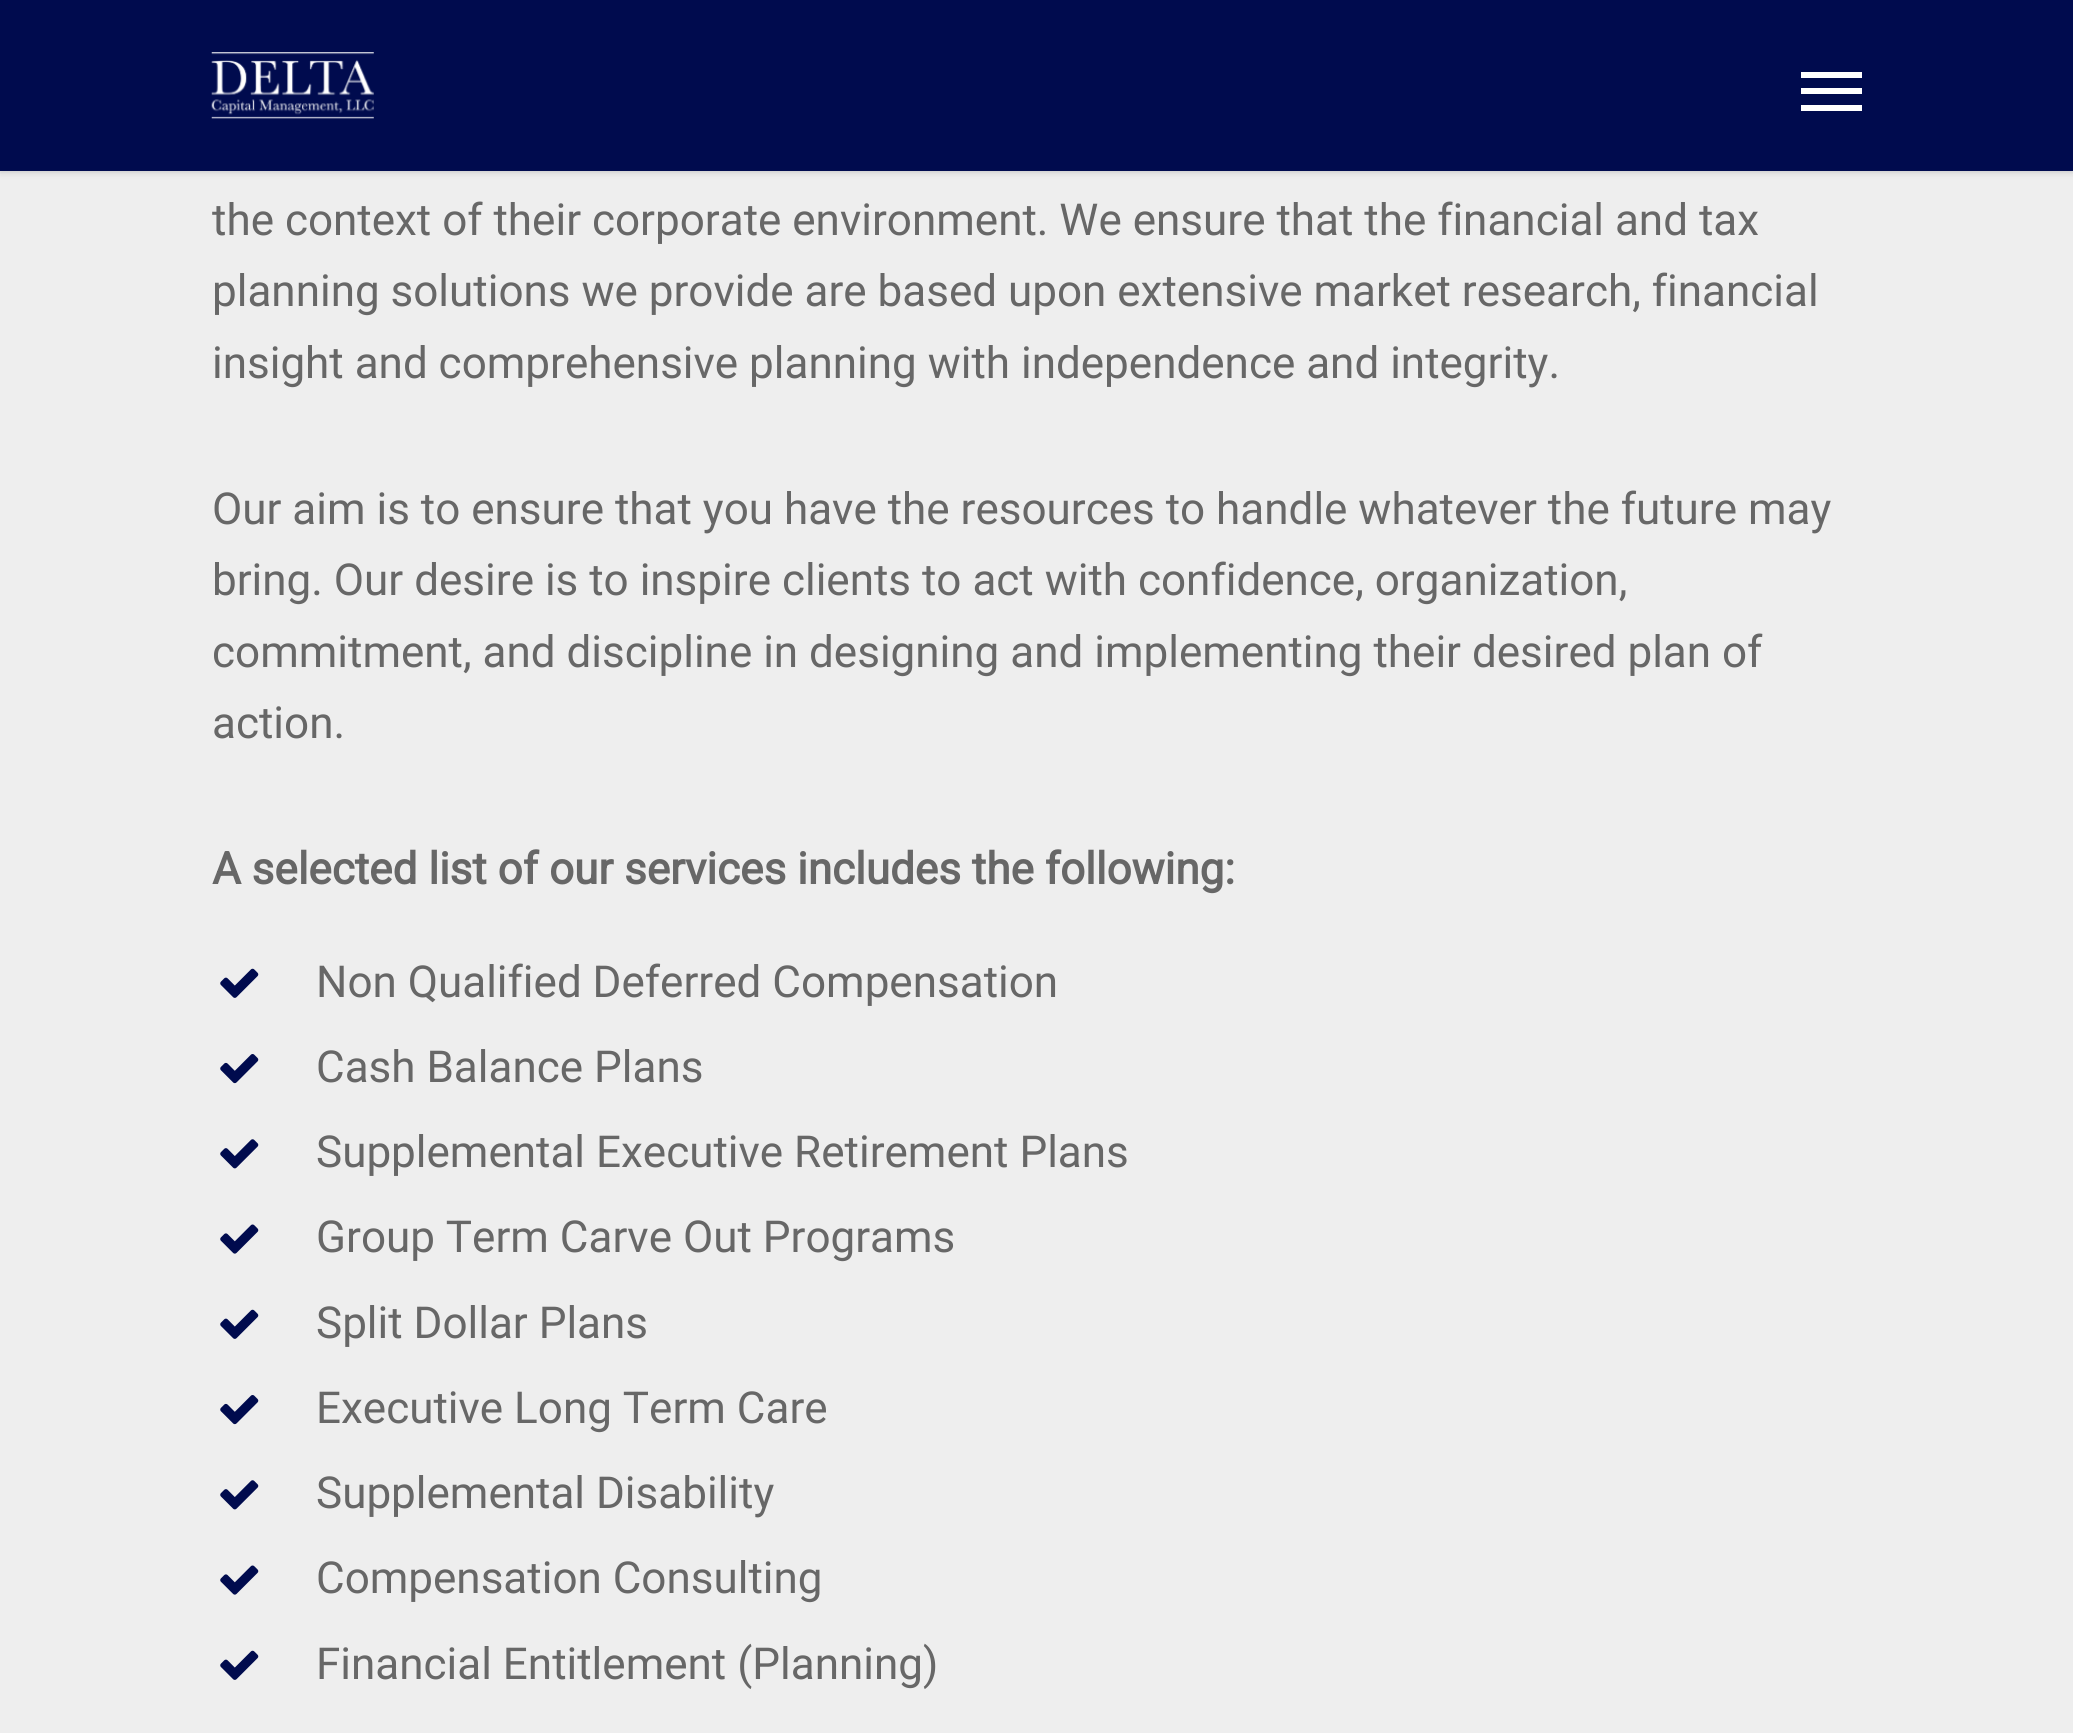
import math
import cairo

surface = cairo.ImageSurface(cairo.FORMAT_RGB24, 2073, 1733)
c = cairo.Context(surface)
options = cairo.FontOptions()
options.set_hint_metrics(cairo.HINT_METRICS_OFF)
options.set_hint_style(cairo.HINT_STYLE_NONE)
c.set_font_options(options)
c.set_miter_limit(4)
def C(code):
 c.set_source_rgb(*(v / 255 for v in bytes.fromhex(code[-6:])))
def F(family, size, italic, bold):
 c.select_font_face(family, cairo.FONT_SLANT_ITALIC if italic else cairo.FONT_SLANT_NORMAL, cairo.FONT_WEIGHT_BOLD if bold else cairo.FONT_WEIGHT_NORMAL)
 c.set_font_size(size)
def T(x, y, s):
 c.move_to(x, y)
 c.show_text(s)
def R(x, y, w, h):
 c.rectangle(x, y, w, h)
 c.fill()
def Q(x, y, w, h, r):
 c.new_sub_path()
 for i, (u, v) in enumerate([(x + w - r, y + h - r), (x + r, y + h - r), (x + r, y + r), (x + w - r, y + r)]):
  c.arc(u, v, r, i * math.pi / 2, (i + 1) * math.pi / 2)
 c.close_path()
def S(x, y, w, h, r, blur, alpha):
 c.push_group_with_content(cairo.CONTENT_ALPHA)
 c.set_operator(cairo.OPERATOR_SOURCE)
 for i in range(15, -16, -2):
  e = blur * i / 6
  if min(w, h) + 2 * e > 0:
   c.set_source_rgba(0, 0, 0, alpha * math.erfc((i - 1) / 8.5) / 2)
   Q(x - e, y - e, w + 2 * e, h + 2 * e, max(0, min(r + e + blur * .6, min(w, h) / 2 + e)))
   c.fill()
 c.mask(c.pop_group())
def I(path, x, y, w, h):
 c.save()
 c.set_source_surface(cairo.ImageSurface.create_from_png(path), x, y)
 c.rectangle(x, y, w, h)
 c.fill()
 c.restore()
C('eeeeee')
c.paint()
C('000000')
S(0,0,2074,171,0,4,.22)
C('000b4e')
R(0,0,2073,171)
I('1.png',211,52,163,67)
C('ffffff')
R(1801,72,61,6)
R(1801,105,61,6)
R(1801,88,61,6)
F('Roboto',44,0,0)
C('676767')
T(212,235,'the context of their corporate environment. We ensure that the financial and tax')
T(212,306,'planning solutions we provide are based upon extensive market research, financial')
T(212,378,'insight and comprehensive planning with independence and integrity.')
T(212,524,'Our aim is to ensure that you have the resources to handle whatever the future may')
T(212,595,'bring. Our desire is to inspire clients to act with confidence, organization,')
T(212,667,'commitment, and discipline in designing and implementing their desired plan of')
T(212,738,'action.')
F('Roboto',44,0,1)
T(212,884,'A selected list of our services includes the following:')
I('2.png',220,968,39,30)
F('Roboto',44,0,0)
T(316,997,'Non Qualified Deferred Compensation')
I('3.png',220,1054,39,30)
T(316,1082,'Cash Balance Plans')
I('4.png',220,1139,39,30)
T(316,1167,'Supplemental Executive Retirement Plans')
I('5.png',220,1224,39,30)
T(316,1252,'Group Term Carve Out Programs')
I('2.png',220,1309,39,30)
T(316,1338,'Split Dollar Plans')
I('3.png',220,1395,39,30)
T(316,1423,'Executive Long Term Care')
I('4.png',220,1480,39,30)
T(316,1508,'Supplemental Disability')
I('5.png',220,1565,39,30)
T(316,1593,'Compensation Consulting')
I('2.png',220,1650,39,30)
T(316,1679,'Financial Entitlement (Planning)')
surface.write_to_png('o.png')
